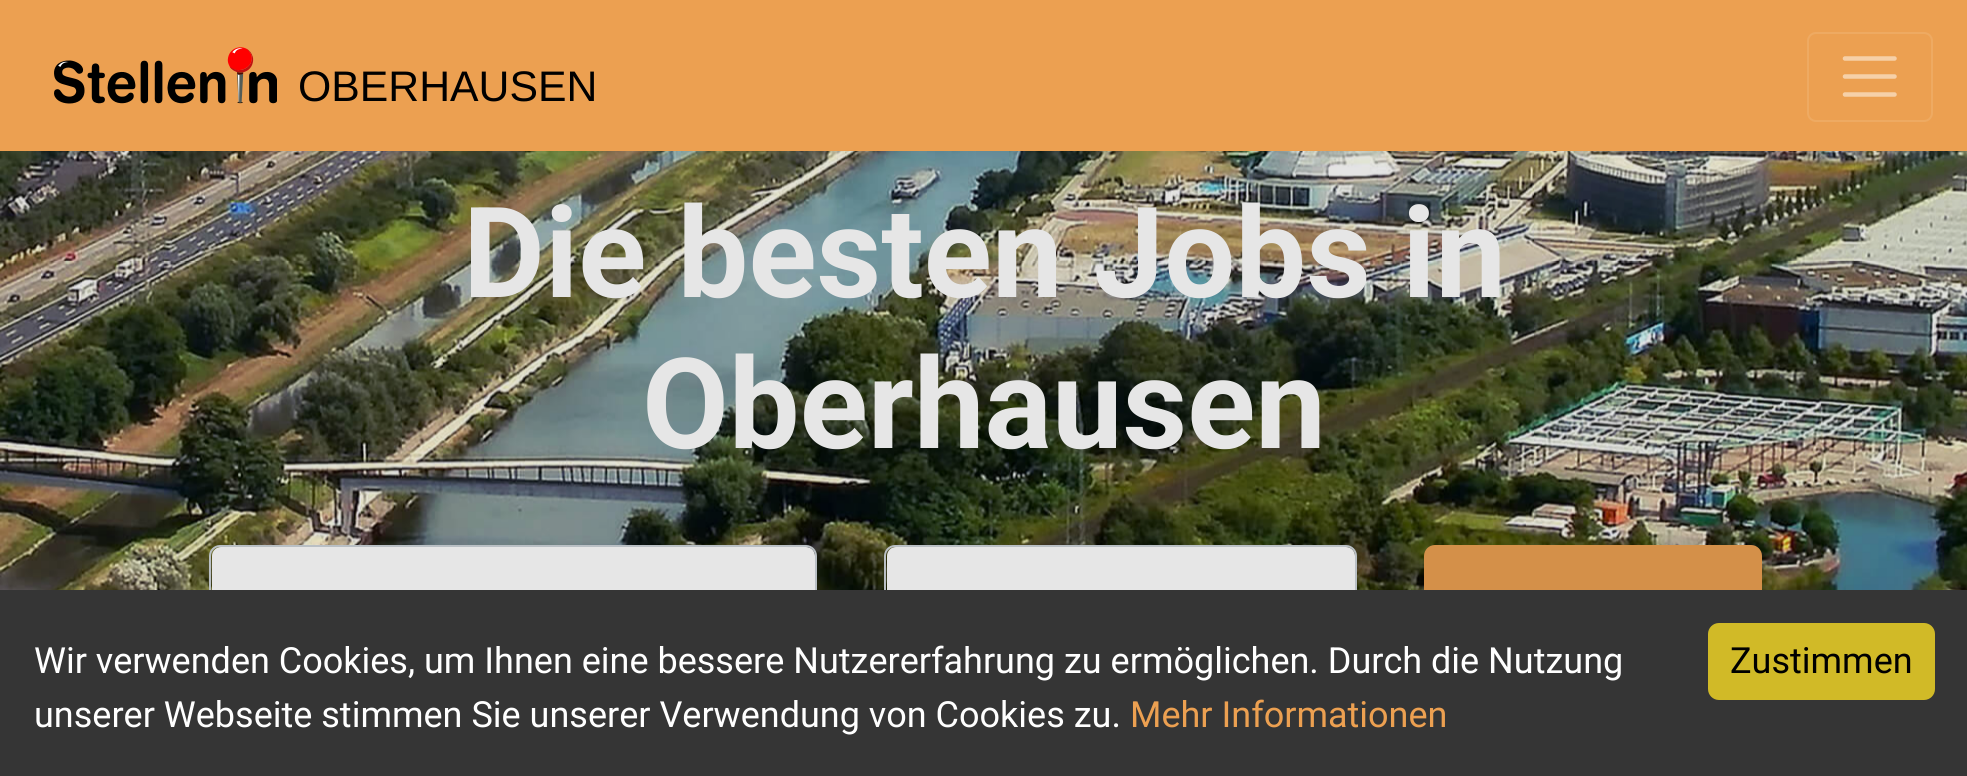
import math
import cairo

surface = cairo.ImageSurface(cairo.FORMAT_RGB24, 1967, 776)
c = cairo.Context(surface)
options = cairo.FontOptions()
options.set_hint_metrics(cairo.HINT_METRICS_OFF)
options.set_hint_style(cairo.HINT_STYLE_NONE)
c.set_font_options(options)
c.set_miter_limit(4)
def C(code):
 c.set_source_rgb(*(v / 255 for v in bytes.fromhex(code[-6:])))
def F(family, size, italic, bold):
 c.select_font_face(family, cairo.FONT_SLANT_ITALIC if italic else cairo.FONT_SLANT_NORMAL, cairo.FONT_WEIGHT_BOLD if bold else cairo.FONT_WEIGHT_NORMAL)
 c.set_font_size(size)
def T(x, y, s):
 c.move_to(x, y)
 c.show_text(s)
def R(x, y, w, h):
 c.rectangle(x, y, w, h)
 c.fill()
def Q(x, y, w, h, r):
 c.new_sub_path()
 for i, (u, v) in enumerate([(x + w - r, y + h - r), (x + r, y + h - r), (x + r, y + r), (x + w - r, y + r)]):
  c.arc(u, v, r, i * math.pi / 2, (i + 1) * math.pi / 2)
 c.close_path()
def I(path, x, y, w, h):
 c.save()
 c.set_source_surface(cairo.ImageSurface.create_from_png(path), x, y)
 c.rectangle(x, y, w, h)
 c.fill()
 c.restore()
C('ffffff')
c.paint()
C('eca051')
R(0,0,1967,151)
I('1.png',54,47,223,57)
F('Liberation Sans',42.75,0,0)
C('000000')
T(298,101,'OBERHAUSEN')
Q(1808,33,124,88,8)
C('eeaa62')
c.stroke()
c.new_path()
c.move_to(1845,58.5)
c.line_to(1894.5,58.5)
c.move_to(1845,76.5)
c.line_to(1894.5,76.5)
c.move_to(1845,94.5)
c.line_to(1894.5,94.5)
C('f6d0a8')
c.set_line_width(4.5)
c.set_line_cap(cairo.LINE_CAP_ROUND)
c.stroke()
I('2.png',0,151,1967,439)
C('e6e6e6')
Q(212,547,603,103,9)
c.fill()
Q(210,546,606,106,10)
C('b9bfc4')
c.set_line_width(2)
c.set_line_cap(cairo.LINE_CAP_BUTT)
c.stroke()
C('e6e6e6')
Q(887,547,468,103,9)
c.fill()
Q(885,546,471,106,10)
C('b9bfc4')
c.stroke()
C('d49049')
Q(1425,546,336,106,10)
c.fill_preserve()
c.stroke()
C('353535')
R(0,590,1967,186)
F('Roboto',36,0,0)
C('ffffff')
T(34,673,'Wir verwenden Cookies, um Ihnen eine bessere Nutzererfahrung zu ermöglichen. Durch die Nutzung')
T(34,727,'unserer Webseite stimmen Sie unserer Verwendung von Cookies zu.')
C('eca051')
T(1130,727,'Mehr Informationen')
C('d1ba27')
Q(1708,623,227,77,11)
c.fill()
C('000000')
T(1730,673,'Zustimmen')
F('Roboto',126,0,1)
C('e6e6e6')
T(463,297,'Die besten Jobs in')
T(642,448,'Oberhausen')
surface.write_to_png('o.png')
